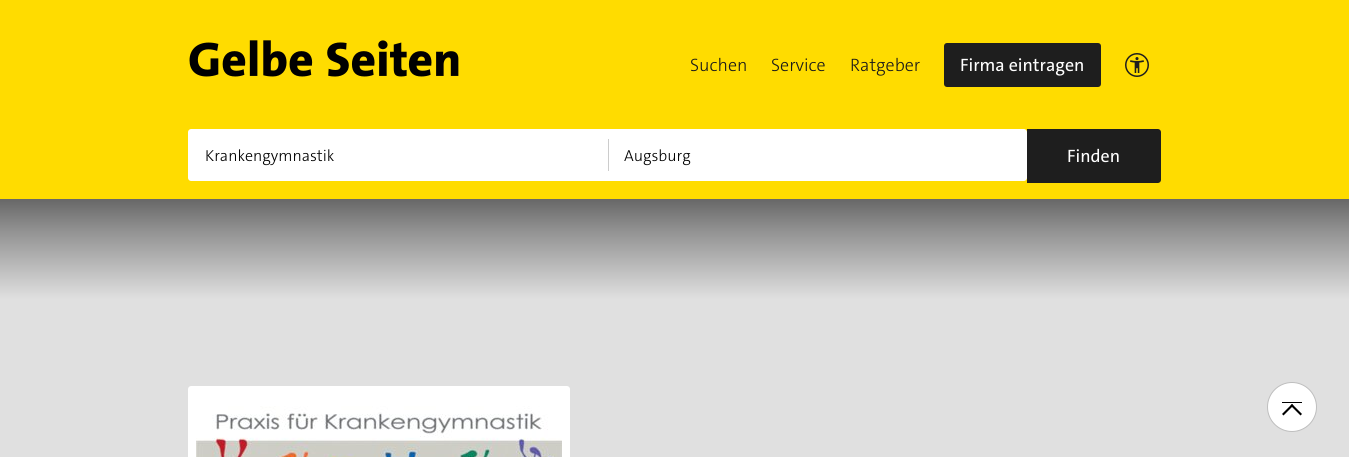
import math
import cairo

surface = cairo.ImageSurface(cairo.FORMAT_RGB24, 1349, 457)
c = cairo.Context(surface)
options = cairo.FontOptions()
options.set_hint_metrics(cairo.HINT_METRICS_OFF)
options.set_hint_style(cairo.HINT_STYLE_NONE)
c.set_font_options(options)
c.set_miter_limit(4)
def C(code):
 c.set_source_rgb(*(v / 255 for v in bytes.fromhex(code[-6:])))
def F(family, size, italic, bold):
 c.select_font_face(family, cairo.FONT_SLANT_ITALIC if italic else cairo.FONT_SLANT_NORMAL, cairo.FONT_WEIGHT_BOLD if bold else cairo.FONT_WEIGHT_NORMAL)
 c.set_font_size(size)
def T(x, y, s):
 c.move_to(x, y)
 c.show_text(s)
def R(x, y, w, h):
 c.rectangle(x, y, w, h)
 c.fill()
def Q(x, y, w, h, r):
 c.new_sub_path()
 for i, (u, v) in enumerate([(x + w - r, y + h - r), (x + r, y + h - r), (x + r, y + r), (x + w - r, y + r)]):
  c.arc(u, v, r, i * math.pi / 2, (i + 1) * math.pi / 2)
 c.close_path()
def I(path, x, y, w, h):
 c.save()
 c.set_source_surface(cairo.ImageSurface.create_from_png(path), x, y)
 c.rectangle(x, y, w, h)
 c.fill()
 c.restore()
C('ffdc00')
c.paint()
I('1.png',189,40,270,37)
F('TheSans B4 Light',18,0,0)
C('1a1a1a')
T(690,71,'Suchen')
T(771,71,'Service')
T(850,71,'Ratgeber')
C('1e1e1e')
Q(944,43,157,44,3)
c.fill()
F('TheSans B4 Medium',18,0,0)
C('ffffff')
T(960,71,'Firma eintragen')
I('2.png',1125,53,24,24)
c.new_path()
c.move_to(191,129)
c.line_to(608,129)
c.line_to(608,181)
c.line_to(191,181)
c.curve_to(189.5,181,188,179.5,188,178)
c.line_to(188,132)
c.curve_to(188,130.5,189.5,129,191,129)
c.close_path()
c.fill()
F('TheSans B4 Light',16,0,0)
C('000000')
T(205,161,'Krankengymnastik')
C('ffffff')
c.new_path()
c.move_to(608,129)
c.line_to(1024,129)
c.curve_to(1025.5,129,1027,130.5,1027,132)
c.line_to(1027,178)
c.curve_to(1027,179.5,1025.5,181,1024,181)
c.line_to(608,181)
c.close_path()
c.fill()
C('cccccc')
R(608,139,1,32)
C('000000')
T(624,161,'Augsburg')
C('1e1e1e')
c.new_path()
c.move_to(1027,129)
c.line_to(1158,129)
c.curve_to(1159.5,129,1161,130.5,1161,132)
c.line_to(1161,180)
c.curve_to(1161,181.5,1159.5,183,1158,183)
c.line_to(1027,183)
c.close_path()
c.fill()
F('TheSans B4 Medium',18,0,0)
C('ffffff')
T(1067,162,'Finden')
C('e0e0e0')
R(0,299,1349,158)
gradient = cairo.LinearGradient(675,299,675,199)
gradient.add_color_stop_rgba(0,0.878,0.878,0.878,1)
gradient.add_color_stop_rgba(.68,0.573,0.573,0.573,1)
gradient.add_color_stop_rgba(1,0.404,0.404,0.404,1)
c.set_source(gradient)
R(0,199,1349,100)
C('ffffff')
c.new_path()
c.move_to(191,386)
c.line_to(567,386)
c.curve_to(568.5,386,570,387.5,570,389)
c.line_to(570,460)
c.line_to(188,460)
c.line_to(188,389)
c.curve_to(188,387.5,189.5,386,191,386)
c.close_path()
c.fill()
I('3.png',196,406,366,51)
c.arc(1292,407,24.5,0,2 * math.pi)
c.fill_preserve()
C('bebebe')
c.set_line_width(1)
c.stroke()
C('000000')
R(1282,402,20,1)
c.new_path()
c.move_to(1292,404)
c.line_to(1302,414)
c.line_to(1300.5,415.5)
c.line_to(1290.5,405.5)
c.close_path()
c.fill()
c.new_path()
c.move_to(1292,404)
c.line_to(1293.5,405.5)
c.line_to(1283.5,415.5)
c.line_to(1282,414)
c.close_path()
c.fill()
surface.write_to_png('o.png')
